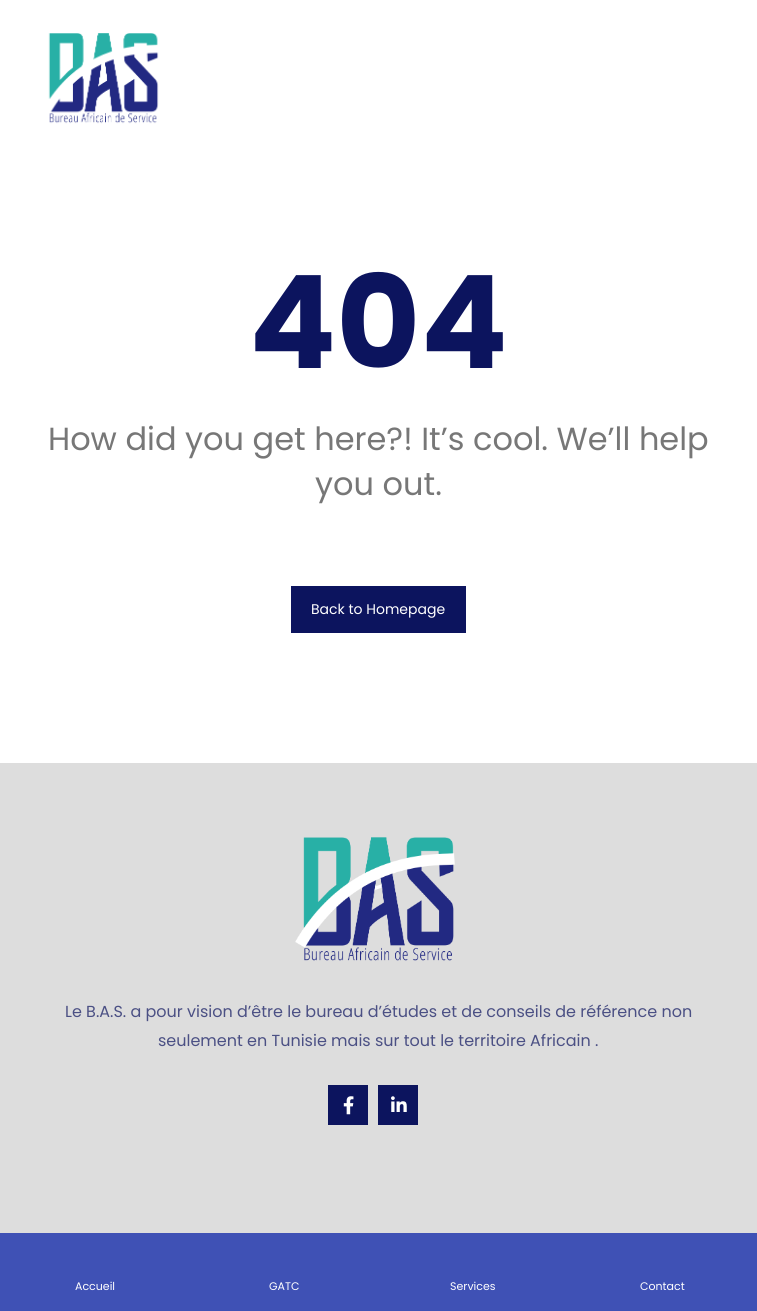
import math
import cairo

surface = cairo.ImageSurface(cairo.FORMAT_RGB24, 757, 1311)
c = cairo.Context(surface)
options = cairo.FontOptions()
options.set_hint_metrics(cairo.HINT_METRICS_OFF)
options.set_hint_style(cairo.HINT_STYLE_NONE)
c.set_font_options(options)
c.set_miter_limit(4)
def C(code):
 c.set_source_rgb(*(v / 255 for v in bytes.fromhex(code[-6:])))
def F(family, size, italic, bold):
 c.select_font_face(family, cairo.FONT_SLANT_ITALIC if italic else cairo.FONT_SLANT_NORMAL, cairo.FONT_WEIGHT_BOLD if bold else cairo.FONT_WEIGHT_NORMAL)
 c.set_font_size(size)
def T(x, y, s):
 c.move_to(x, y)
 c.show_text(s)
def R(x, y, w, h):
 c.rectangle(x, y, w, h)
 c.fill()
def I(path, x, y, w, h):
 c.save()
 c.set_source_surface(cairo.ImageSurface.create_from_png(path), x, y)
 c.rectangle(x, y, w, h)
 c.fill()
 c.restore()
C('ffffff')
c.paint()
I('1.png',48,33,111,91)
F('Poppins',129,0,1)
C('0c145e')
T(249,368,'404')
F('Poppins',32,0,0)
C('777777')
T(48,450,'How did you get here?! It’s cool. We’ll help')
T(315,495,'you out.')
C('0c145e')
R(291,586,175,47)
F('Poppins',14,0,0)
C('ffffff')
T(311,614,'Back to Homepage')
C('dddddd')
R(0,763,757,470)
I('2.png',295,837,160,124)
F('Poppins',16,0,0)
C('4b5084')
T(65,1017,'Le B.A.S. a pour vision d’être le bureau d’études et de conseils de référence non')
T(158,1046,'seulement en Tunisie mais sur tout le territoire Africain .')
C('0c145e')
R(328,1085,40,40)
I('3.png',343,1096,11,19)
R(378,1085,40,40)
I('4.png',391,1096,16,16)
C('3f51b5')
R(0,1233,757,78)
F('Poppins',11,0,0)
C('ffffff')
T(75,1290,'Accueil')
T(269,1290,'GATC')
T(450,1290,'Services')
T(640,1290,'Contact')
surface.write_to_png('o.png')
